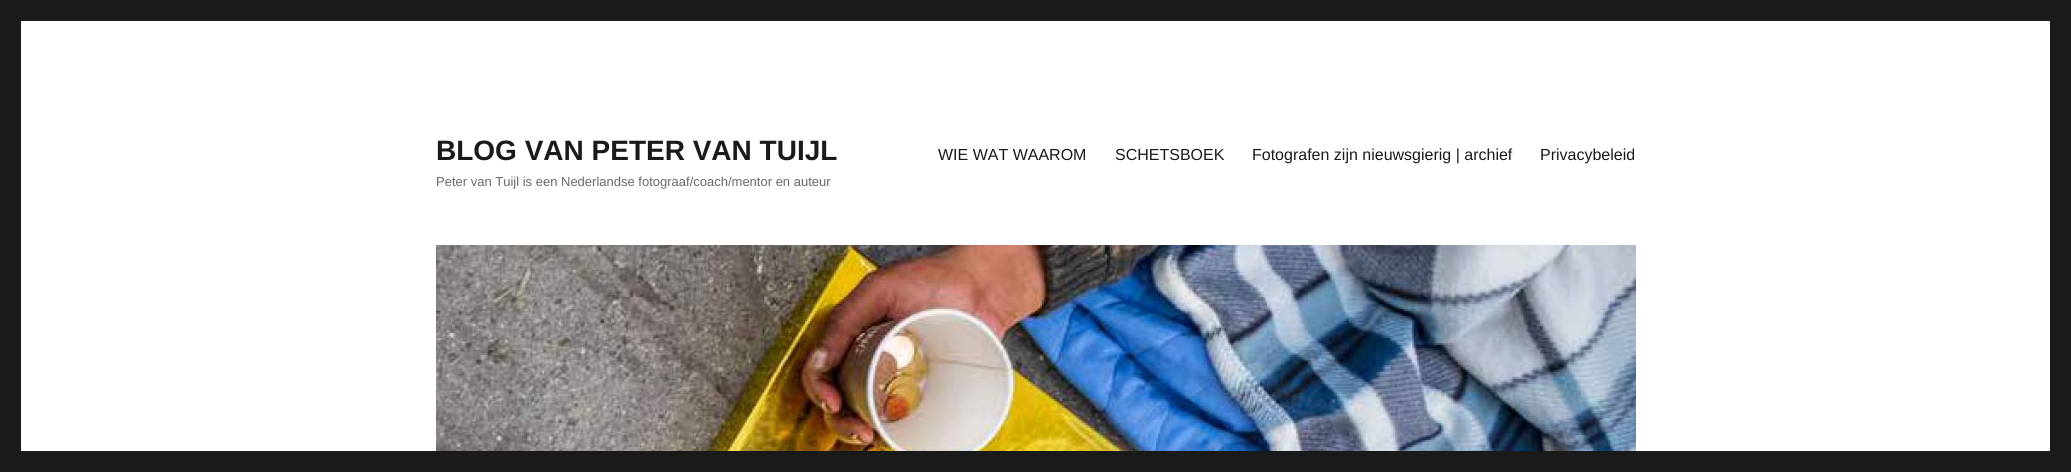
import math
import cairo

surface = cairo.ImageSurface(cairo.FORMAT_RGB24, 2071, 472)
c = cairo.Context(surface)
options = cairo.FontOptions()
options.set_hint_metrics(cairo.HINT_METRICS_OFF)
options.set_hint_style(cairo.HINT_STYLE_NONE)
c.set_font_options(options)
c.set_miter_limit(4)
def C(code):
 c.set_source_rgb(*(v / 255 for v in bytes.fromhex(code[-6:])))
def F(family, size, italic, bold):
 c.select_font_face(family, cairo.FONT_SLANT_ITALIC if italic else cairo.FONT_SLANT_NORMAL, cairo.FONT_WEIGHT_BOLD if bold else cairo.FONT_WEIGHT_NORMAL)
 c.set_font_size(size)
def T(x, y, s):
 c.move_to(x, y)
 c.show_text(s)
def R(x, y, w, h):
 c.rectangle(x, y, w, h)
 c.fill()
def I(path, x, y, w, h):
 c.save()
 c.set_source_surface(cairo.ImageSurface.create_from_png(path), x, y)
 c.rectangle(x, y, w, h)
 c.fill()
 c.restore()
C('1a1a1a')
c.paint()
C('ffffff')
R(21,21,2029,430)
F('Liberation Sans',28,0,1)
C('1a1a1a')
T(436,160,'BLOG VAN PETER VAN TUIJL')
F('Liberation Sans',13,0,0)
C('686868')
T(436,186,'Peter van Tuijl is een Nederlandse fotograaf/coach/mentor en auteur')
F('Liberation Sans',16,0,0)
C('1a1a1a')
T(938,160,'WIE WAT WAAROM')
T(1115,160,'SCHETSBOEK')
T(1252,160,'Fotografen zijn nieuwsgierig | archief')
T(1540,160,'Privacybeleid')
I('1.png',436,245,1200,206)
surface.write_to_png('o.png')
